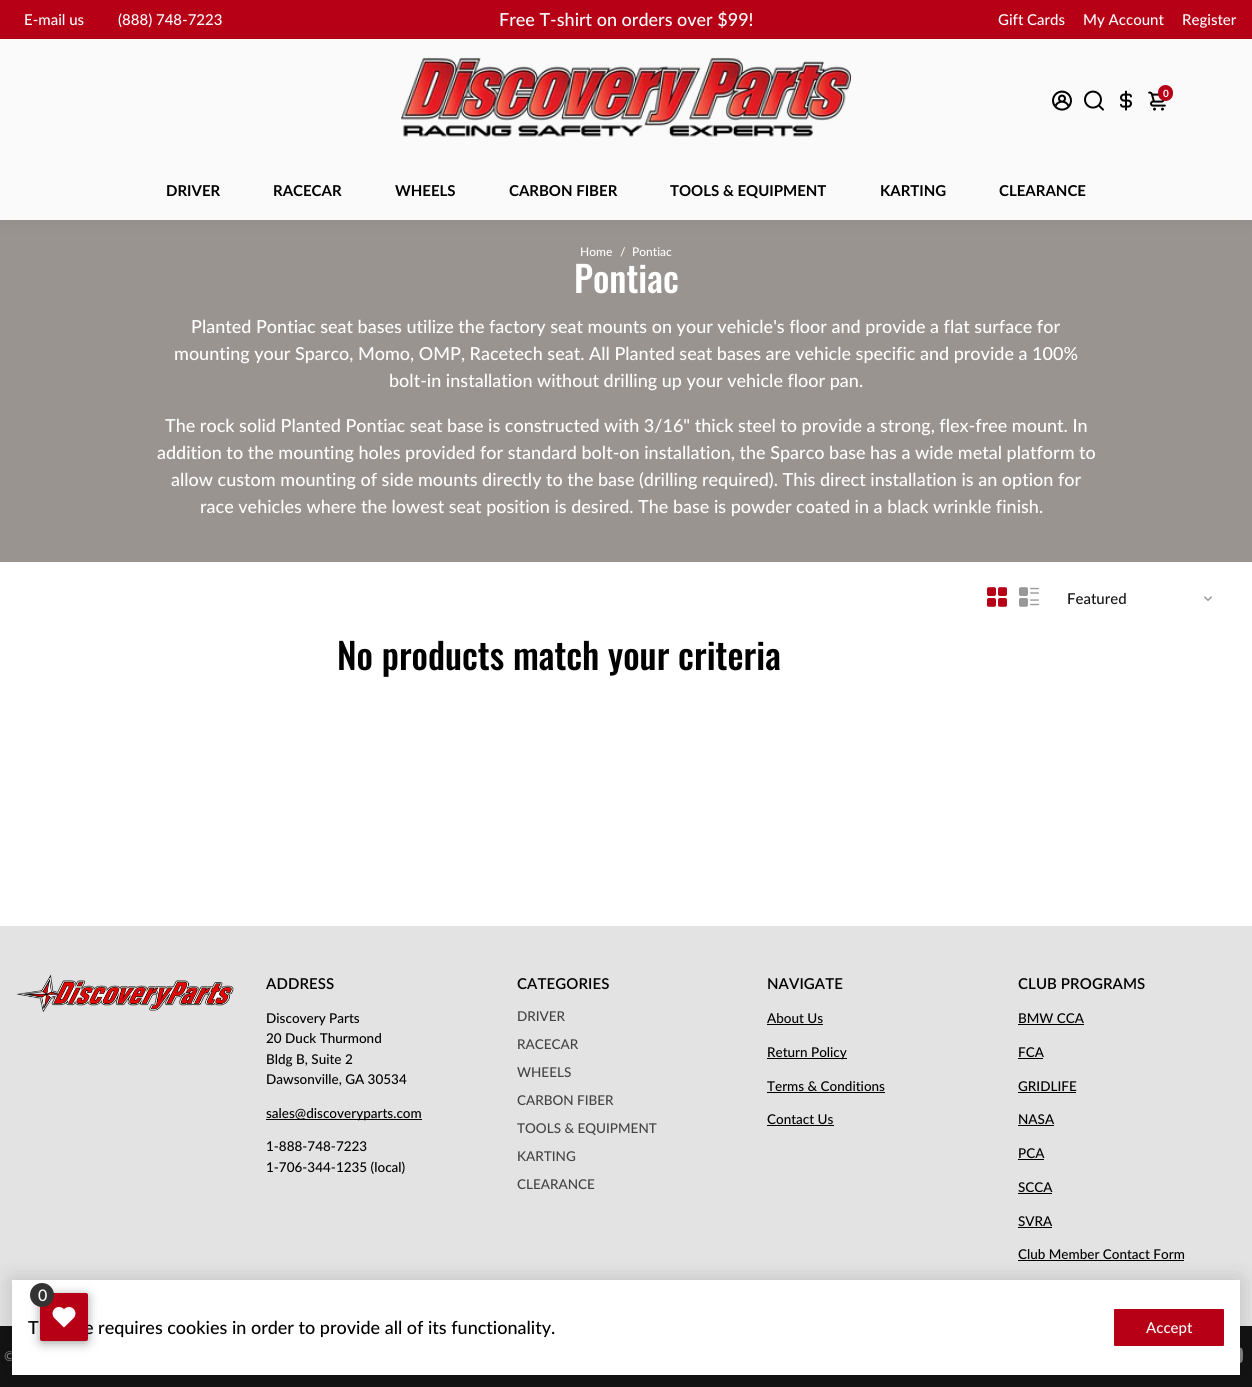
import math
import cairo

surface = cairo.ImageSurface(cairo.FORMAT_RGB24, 1252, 1387)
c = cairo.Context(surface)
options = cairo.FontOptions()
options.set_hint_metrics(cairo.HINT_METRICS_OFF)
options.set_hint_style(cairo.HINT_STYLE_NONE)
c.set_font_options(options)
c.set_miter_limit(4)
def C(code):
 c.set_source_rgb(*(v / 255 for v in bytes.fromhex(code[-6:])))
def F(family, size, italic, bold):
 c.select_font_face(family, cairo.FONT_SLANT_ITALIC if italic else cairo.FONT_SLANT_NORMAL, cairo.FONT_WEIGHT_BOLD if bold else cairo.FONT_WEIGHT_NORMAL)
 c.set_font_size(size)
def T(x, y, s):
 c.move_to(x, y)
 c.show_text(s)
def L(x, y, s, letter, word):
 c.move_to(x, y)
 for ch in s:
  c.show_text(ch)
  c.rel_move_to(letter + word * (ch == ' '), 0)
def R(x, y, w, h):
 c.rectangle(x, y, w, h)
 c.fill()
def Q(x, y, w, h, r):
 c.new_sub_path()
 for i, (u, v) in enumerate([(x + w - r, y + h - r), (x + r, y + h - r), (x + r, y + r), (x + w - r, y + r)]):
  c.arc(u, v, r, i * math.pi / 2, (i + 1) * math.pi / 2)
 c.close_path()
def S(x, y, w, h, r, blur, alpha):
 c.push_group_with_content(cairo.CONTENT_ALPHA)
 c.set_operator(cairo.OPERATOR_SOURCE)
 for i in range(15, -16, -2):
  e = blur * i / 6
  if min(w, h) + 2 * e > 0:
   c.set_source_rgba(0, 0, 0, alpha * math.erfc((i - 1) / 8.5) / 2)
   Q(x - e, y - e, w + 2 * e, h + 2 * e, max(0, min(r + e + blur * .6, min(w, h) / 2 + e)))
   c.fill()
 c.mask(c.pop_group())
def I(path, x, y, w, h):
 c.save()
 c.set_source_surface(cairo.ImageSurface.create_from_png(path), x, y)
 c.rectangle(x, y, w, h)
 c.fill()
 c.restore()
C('ffffff')
c.paint()
C('b70016')
R(0,0,1252,39)
F('Lato Medium',15,0,0)
C('ffffff')
T(24,25,'E-mail us')
T(118,25,'(888) 748-7223')
F('Lato Medium',18,0,0)
T(499,26,'Free T-shirt on orders over $99!')
F('Lato Medium',15,0,0)
T(998,25,'Gift Cards')
T(1083,25,'My Account')
T(1182,25,'Register')
C('9a9491')
R(0,220,1252,342)
C('000000')
S(0,39,1252,181,0,10,.06)
C('fafafa')
R(0,39,1252,181)
I('1.png',401,57,450,80)
I('2.png',1052,90,20,21)
I('3.png',1084,90,20,21)
I('4.png',1120,90,12,21)
I('5.png',1148,91,18,20)
C('b70016')
Q(1158,85,15,16,7.5)
c.fill()
F('Lato',10,0,1)
C('ffffff')
T(1163,97,'0')
F('Lato',15,0,1)
C('000000')
T(166,196,'DRIVER')
T(273,196,'RACECAR')
T(395,196,'WHEELS')
T(509,196,'CARBON FIBER')
T(670,196,'TOOLS & EQUIPMENT')
T(880,196,'KARTING')
T(999,196,'CLEARANCE')
F('Lato Medium',12,0,0)
C('ffffff')
T(580,256,'Home')
T(620,256,'/')
T(632,256,'Pontiac')
F('Oswald Medium',36,0,0)
T(574,293,'Pontiac')
F('Lato Medium',18,0,0)
T(191,333,'Planted Pontiac seat bases utilize the factory seat mounts on your vehicle\'s floor and provide a flat surface for')
T(174,360,'mounting your Sparco, Momo, OMP, Racetech seat. All Planted seat bases are vehicle specific and provide a 100%')
T(389,387,'bolt-in installation without drilling up your vehicle floor pan.')
T(165,432,'The rock solid Planted Pontiac seat base is constructed with 3/16" thick steel to provide a strong, flex-free mount. In')
T(157,459,'addition to the mounting holes provided for standard bolt-on installation, the Sparco base has a wide metal platform to')
T(171,486,'allow custom mounting of side mounts directly to the base (drilling required). This direct installation is an option for')
T(200,513,'race vehicles where the lowest seat position is desired. The base is powder coated in a black wrinkle finish.')
I('6.png',987,587,20,20)
I('7.png',1019,587,20,20)
F('Lato Medium',15,0,0)
C('121317')
T(1067,604,'Featured')
I('8.png',1204,596,8,5)
F('Oswald Medium',36,0,0)
C('000000')
T(337,670,'No products match your criteria')
C('e3e3e3')
R(0,926,1252,400)
I('9.png',16,974,218,38)
F('Lato SemiBold',15,0,0)
C('000000')
L(266,989,'ADDRESS',.1,0)
F('Lato Medium',13.5,0,0)
T(266,1023,'Discovery Parts')
T(266,1043,'20 Duck Thurmond')
T(266,1064,'Bldg B, Suite 2')
T(266,1084,'Dawsonville, GA 30534')
R(266,1119,156,1)
T(266,1118,'sales@discoveryparts.com')
T(266,1151,'1-888-748-7223')
T(266,1172,'1-706-344-1235 (local)')
F('Lato SemiBold',15,0,0)
L(517,989,'CATEGORIES',.1,0)
F('Lato Medium',13.5,0,0)
C('444444')
T(517,1021,'DRIVER')
T(517,1049,'RACECAR')
T(517,1077,'WHEELS')
T(517,1105,'CARBON FIBER')
T(517,1133,'TOOLS & EQUIPMENT')
T(517,1161,'KARTING')
T(517,1189,'CLEARANCE')
F('Lato SemiBold',15,0,0)
C('000000')
L(767,989,'NAVIGATE',.1,0)
F('Lato Medium',13.5,0,0)
T(767,1023,'About Us')
R(767,1024,56,1)
R(767,1058,80,1)
T(767,1057,'Return Policy')
T(767,1091,'Terms & Conditions')
R(767,1092,118,1)
T(767,1124,'Contact Us')
R(767,1125,67,1)
F('Lato SemiBold',15,0,0)
L(1018,989,'CLUB PROGRAMS',.1,0)
F('Lato Medium',13.5,0,0)
T(1018,1023,'BMW CCA')
R(1018,1024,66,1)
T(1018,1057,'FCA')
R(1018,1058,25,1)
T(1018,1091,'GRIDLIFE')
R(1018,1092,58,1)
T(1018,1124,'NASA')
R(1018,1125,36,1)
T(1018,1158,'PCA')
R(1018,1159,26,1)
T(1018,1192,'SCCA')
R(1018,1193,34,1)
T(1018,1226,'SVRA')
R(1018,1227,34,1)
T(1018,1259,'Club Member Contact Form')
R(1018,1260,166,1)
C('131313')
R(0,1326,1252,61)
C('878787')
T(4,1361,'©')
I('10.png',1240,1347,3,16)
C('000000')
S(12,1280,1228,95,0,12,.16)
C('ffffff')
R(12,1280,1228,95)
C('000000')
S(42,1297,44,44,0,6,.5)
F('Lato Medium',18,0,0)
C('000000')
T(84,1334,'e requires cookies in order to provide all of its functionality.')
C('b70016')
Q(40,1293,48,48,2)
c.fill()
C('333333')
c.arc(42,1295,12,0,2 * math.pi)
c.fill()
F('Lato Medium',16,0,0)
C('ffffff')
T(38,1301,'0')
I('11.png',52,1307,24,21)
F('Lato Medium',18,0,0)
C('000000')
T(28,1334,'T')
C('b70016')
Q(1114,1309,110,37,1)
c.fill()
F('Lato Medium',15,0,0)
C('ffffff')
T(1146,1333,'Accept')
surface.write_to_png('o.png')
